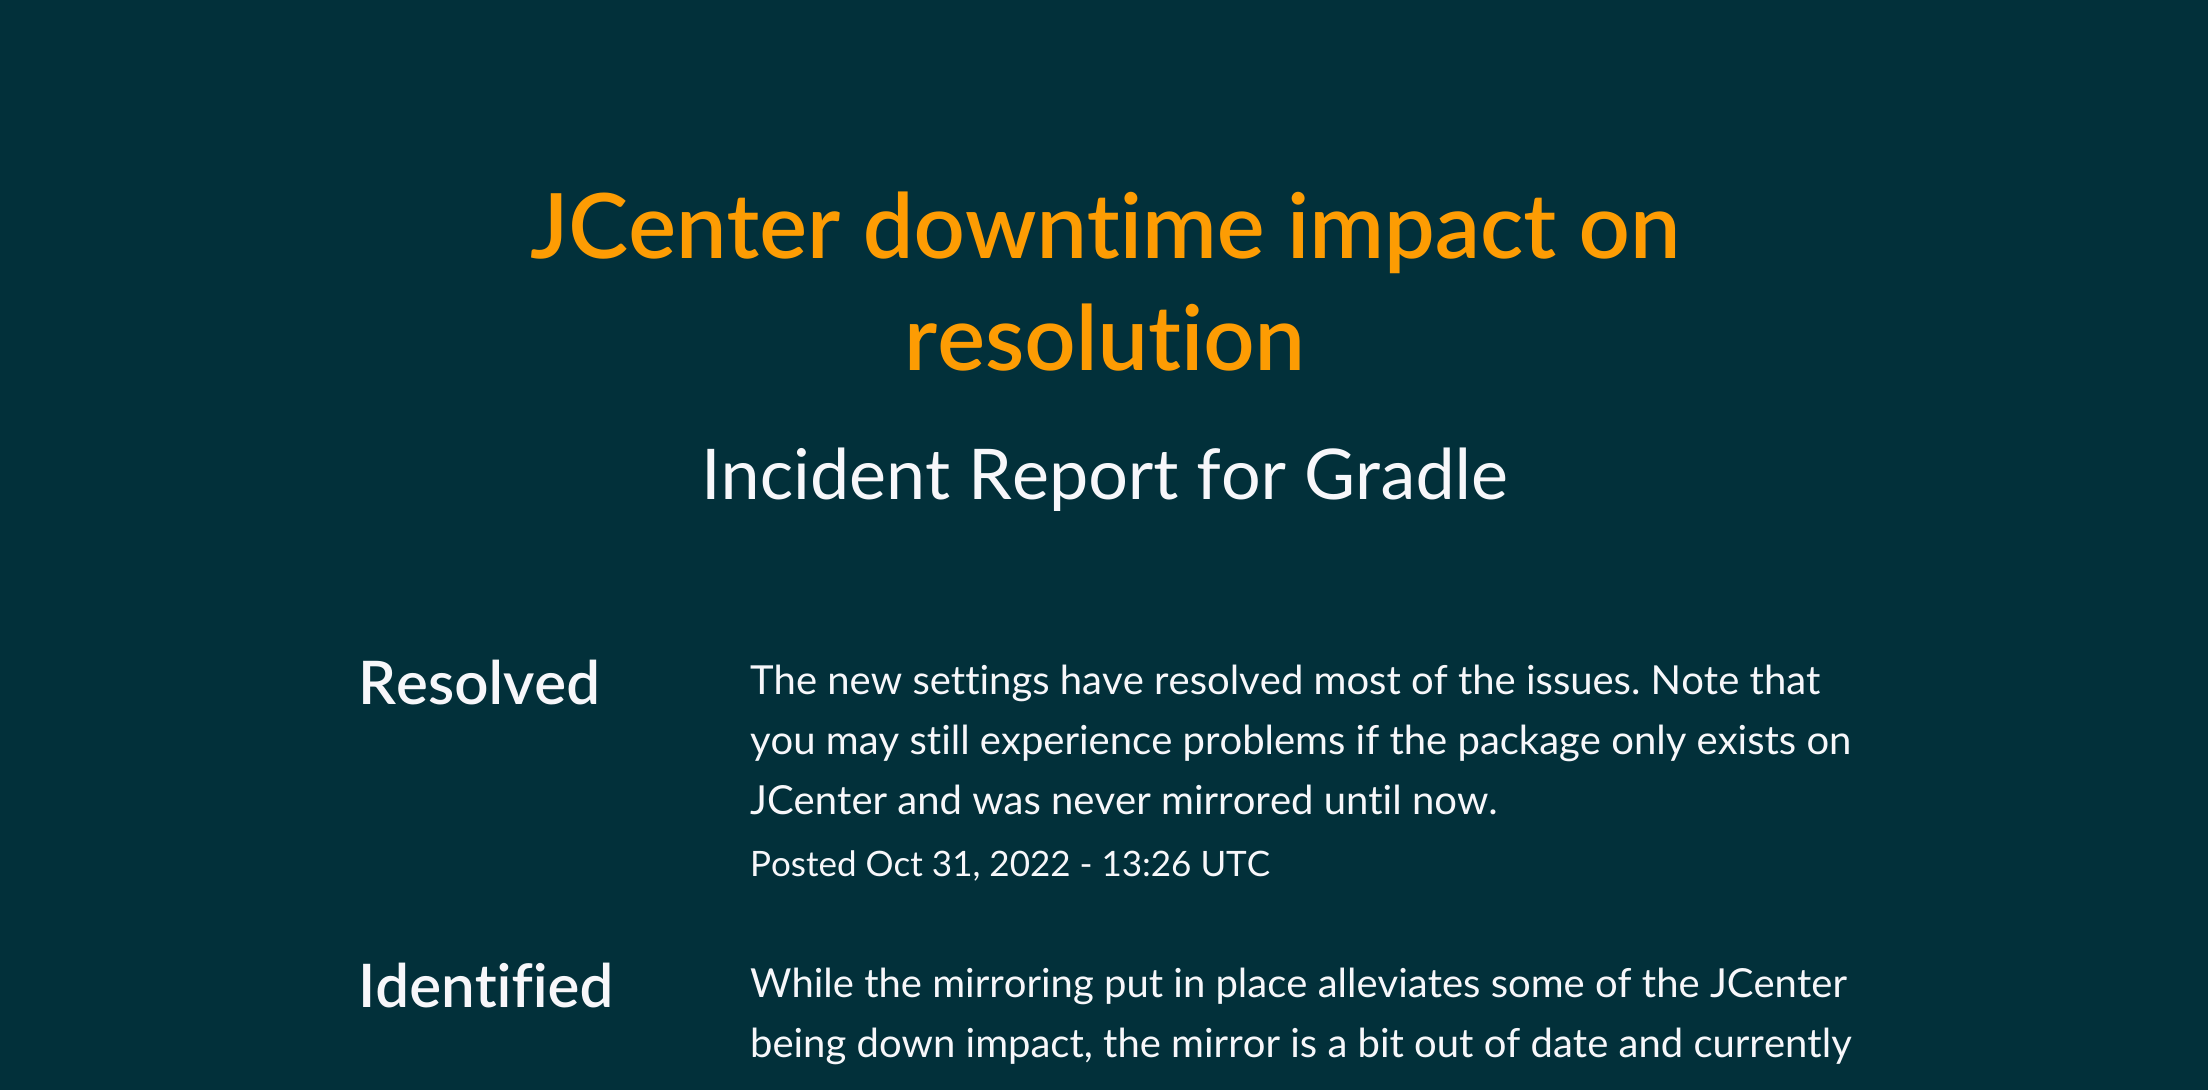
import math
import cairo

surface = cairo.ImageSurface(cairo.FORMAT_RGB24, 2208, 1090)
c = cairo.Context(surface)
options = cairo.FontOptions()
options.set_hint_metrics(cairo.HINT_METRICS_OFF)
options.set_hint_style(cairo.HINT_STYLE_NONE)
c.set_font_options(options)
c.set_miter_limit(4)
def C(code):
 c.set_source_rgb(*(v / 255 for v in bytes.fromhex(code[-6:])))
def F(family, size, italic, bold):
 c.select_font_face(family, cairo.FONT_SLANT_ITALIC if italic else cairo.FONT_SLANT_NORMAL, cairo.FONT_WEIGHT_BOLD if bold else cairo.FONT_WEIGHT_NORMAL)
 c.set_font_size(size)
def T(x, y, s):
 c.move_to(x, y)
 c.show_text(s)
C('02303a')
c.paint()
F('Lato SemiBold',90,0,0)
C('fd9c03')
T(530,258,'JCenter downtime impact on')
T(904,370,'resolution')
F('Lato',70,0,0)
C('f7f7fa')
T(701,499,'Incident Report for Gradle')
F('Lato SemiBold',60,0,0)
T(358,704,'Resolved')
F('Lato',40,0,0)
T(750,694,'The new settings have resolved most of the issues. Note that')
T(750,754,'you may still experience problems if the package only exists on')
T(750,814,'JCenter and was never mirrored until now.')
F('Lato',35,0,0)
T(750,876,'Posted Oct 31, 2022 - 13:26 UTC')
F('Lato SemiBold',60,0,0)
T(358,1007,'Identified')
F('Lato',40,0,0)
T(750,997,'While the mirroring put in place alleviates some of the JCenter')
T(750,1057,'being down impact, the mirror is a bit out of date and currently')
surface.write_to_png('o.png')
